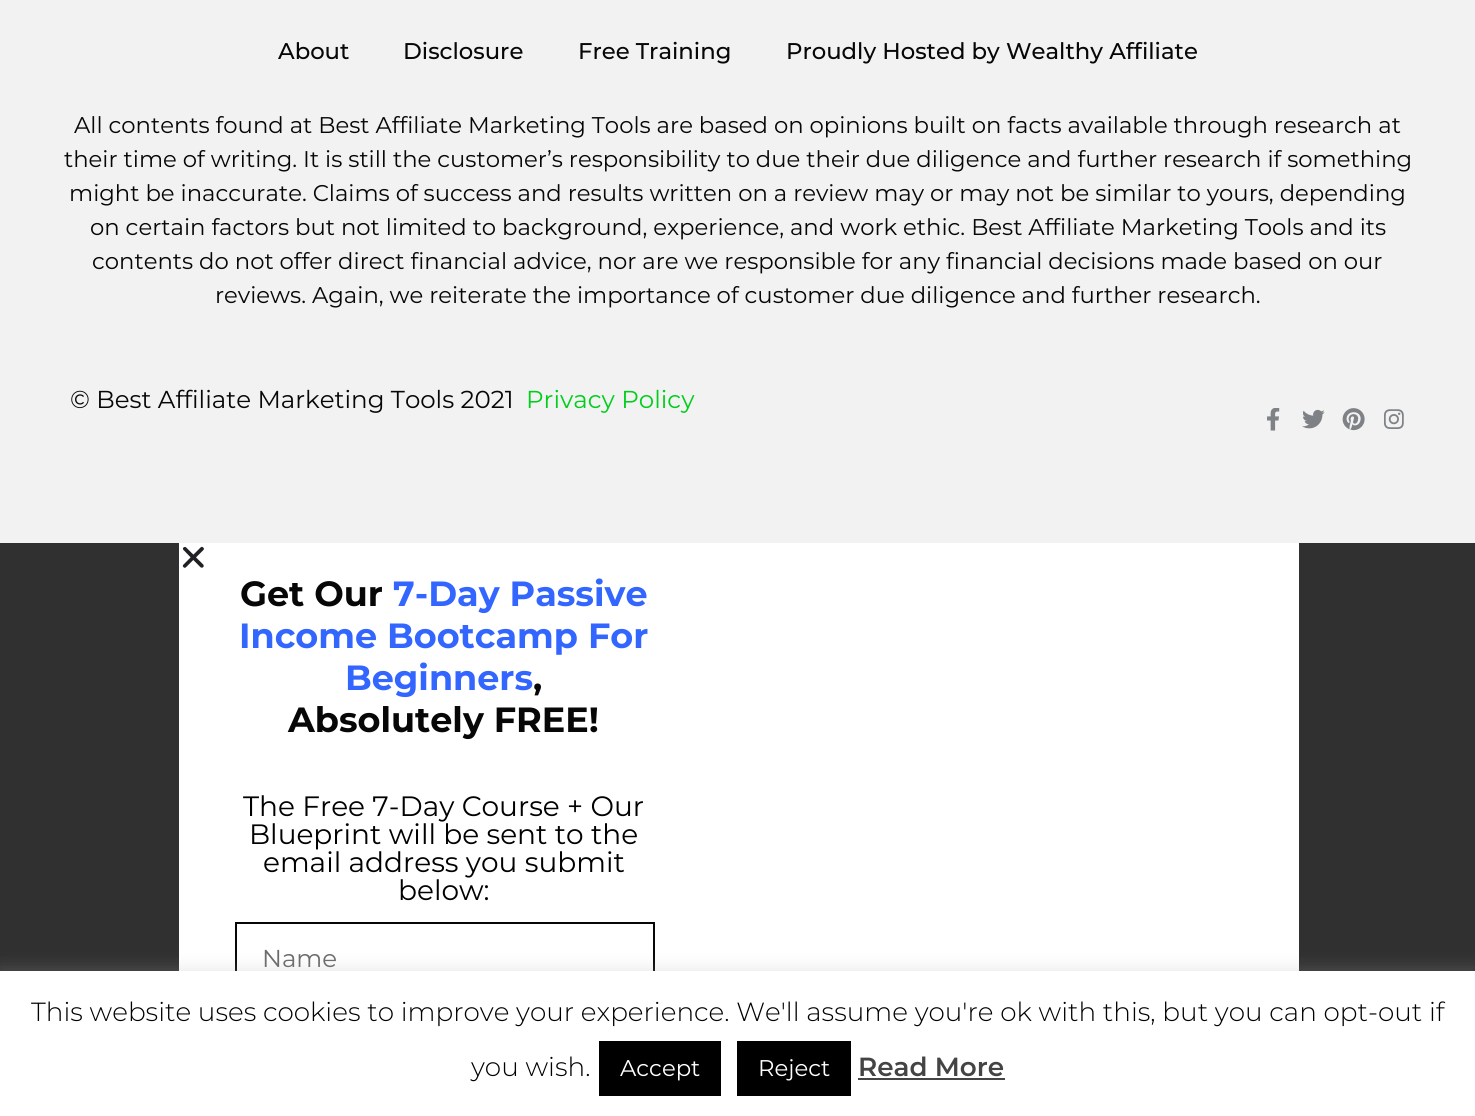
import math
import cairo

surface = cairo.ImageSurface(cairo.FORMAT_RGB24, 1475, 1116)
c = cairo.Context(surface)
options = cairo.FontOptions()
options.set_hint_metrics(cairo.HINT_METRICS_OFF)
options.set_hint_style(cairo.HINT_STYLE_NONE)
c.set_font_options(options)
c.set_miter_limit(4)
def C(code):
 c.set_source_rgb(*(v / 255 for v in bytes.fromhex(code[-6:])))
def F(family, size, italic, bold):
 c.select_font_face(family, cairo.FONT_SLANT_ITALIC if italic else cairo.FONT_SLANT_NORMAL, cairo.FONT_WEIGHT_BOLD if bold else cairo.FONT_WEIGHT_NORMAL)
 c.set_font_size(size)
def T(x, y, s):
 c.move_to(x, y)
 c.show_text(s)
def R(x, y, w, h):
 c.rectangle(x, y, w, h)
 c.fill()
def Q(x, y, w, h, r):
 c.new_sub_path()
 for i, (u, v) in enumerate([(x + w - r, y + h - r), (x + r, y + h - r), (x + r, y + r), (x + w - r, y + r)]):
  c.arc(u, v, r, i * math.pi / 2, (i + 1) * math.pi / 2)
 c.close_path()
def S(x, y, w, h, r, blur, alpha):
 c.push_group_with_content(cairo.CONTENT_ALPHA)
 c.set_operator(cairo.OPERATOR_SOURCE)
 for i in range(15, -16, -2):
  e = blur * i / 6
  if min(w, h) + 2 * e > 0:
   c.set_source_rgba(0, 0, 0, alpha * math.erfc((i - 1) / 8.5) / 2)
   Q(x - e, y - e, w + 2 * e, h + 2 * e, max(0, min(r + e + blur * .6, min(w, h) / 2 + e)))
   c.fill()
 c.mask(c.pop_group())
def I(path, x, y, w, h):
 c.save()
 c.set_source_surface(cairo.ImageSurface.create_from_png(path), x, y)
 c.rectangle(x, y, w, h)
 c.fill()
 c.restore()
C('303030')
c.paint()
C('f2f2f2')
R(0,0,1475,543)
F('Montserrat Medium',22.75,0,0)
C('070707')
T(278,59,'About')
T(403,59,'Disclosure')
T(578,59,'Free Training')
T(786,59,'Proudly Hosted by Wealthy Affiliate')
F('Montserrat',22.75,0,0)
T(74,133,'All contents found at Best Affiliate Marketing Tools are based on opinions built on facts available through research at')
T(64,167,'their time of writing. It is still the customer’s responsibility to due their due diligence and further research if something')
T(69,201,'might be inaccurate. Claims of success and results written on a review may or may not be similar to yours, depending')
T(90,235,'on certain factors but not limited to background, experience, and work ethic. Best Affiliate Marketing Tools and its')
T(92,269,'contents do not offer direct financial advice, nor are we responsible for any financial decisions made based on our')
T(215,303,'reviews. Again, we reiterate the importance of customer due diligence and further research.')
F('Montserrat',24.5,0,0)
T(70,408,'© Best Affiliate Marketing Tools 2021')
C('00ce1b')
T(526,408,'Privacy Policy')
I('1.png',1267,408,13,23)
I('2.png',1302,409,23,20)
I('3.png',1342,408,23,23)
I('4.png',1384,409,20,20)
C('ffffff')
R(179,543,1120,428)
I('5.png',182,546,22,22)
F('Montserrat',35,0,1)
C('070707')
T(240,606,'Get Our')
C('3366ff')
T(393,606,'7-Day Passive')
T(239,648,'Income Bootcamp For')
T(345,690,'Beginners')
C('070707')
T(533,690,',')
T(288,732,'Absolutely FREE!')
F('Montserrat',28,0,0)
C('000000')
T(243,816,'The Free 7-Day Course + Our')
T(249,844,'Blueprint will be sent to the')
T(263,872,'email address you submit')
T(398,900,'below:')
c.rectangle(236,923,418,72)
C('070707')
c.stroke()
F('Montserrat',24.5,0,0)
C('6a6a6a')
T(262,967,'Name')
C('acabab')
S(0,970,1475,145,0,9,.3)
C('ffffff')
R(0,971,1475,145)
F('Montserrat Light',26.25,0,0)
C('000000')
T(31,1021,'This website uses cookies to improve your experience. We\'ll assume you\'re ok with this, but you can opt-out if')
T(471,1076,'you wish.')
R(599,1041,122,55)
F('Montserrat',22.75,0,0)
C('ffffff')
T(620,1076,'Accept')
C('000000')
R(737,1041,114,55)
C('ffffff')
T(758,1076,'Reject')
F('Montserrat SemiBold',26.25,0,0)
C('444444')
T(858,1076,'Read More')
R(858,1078,147,2)
surface.write_to_png('o.png')
